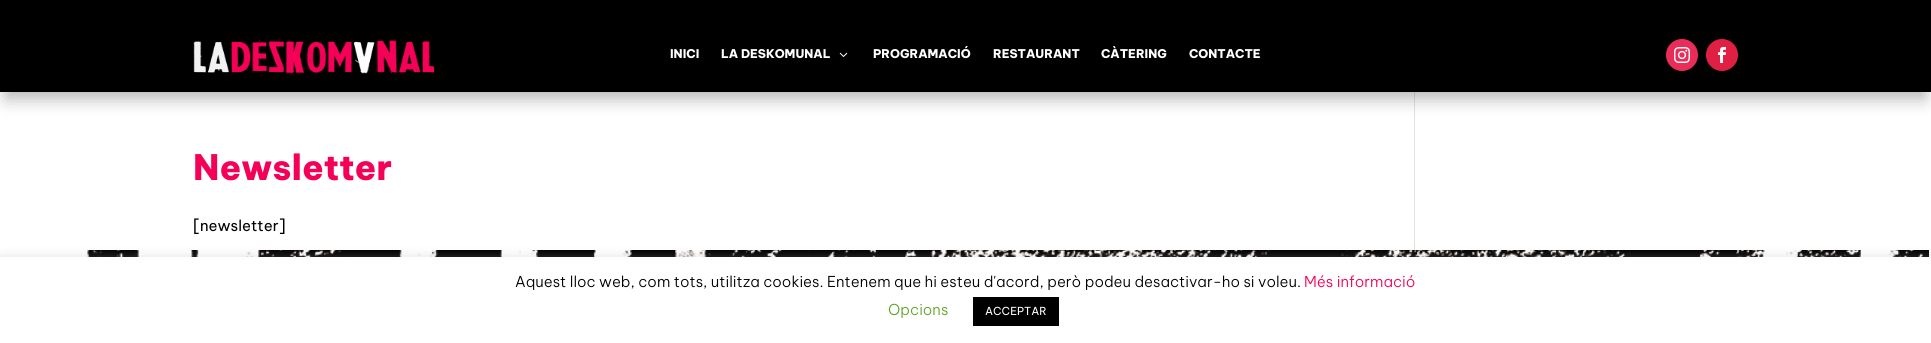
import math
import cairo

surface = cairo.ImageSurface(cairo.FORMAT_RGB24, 1931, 343)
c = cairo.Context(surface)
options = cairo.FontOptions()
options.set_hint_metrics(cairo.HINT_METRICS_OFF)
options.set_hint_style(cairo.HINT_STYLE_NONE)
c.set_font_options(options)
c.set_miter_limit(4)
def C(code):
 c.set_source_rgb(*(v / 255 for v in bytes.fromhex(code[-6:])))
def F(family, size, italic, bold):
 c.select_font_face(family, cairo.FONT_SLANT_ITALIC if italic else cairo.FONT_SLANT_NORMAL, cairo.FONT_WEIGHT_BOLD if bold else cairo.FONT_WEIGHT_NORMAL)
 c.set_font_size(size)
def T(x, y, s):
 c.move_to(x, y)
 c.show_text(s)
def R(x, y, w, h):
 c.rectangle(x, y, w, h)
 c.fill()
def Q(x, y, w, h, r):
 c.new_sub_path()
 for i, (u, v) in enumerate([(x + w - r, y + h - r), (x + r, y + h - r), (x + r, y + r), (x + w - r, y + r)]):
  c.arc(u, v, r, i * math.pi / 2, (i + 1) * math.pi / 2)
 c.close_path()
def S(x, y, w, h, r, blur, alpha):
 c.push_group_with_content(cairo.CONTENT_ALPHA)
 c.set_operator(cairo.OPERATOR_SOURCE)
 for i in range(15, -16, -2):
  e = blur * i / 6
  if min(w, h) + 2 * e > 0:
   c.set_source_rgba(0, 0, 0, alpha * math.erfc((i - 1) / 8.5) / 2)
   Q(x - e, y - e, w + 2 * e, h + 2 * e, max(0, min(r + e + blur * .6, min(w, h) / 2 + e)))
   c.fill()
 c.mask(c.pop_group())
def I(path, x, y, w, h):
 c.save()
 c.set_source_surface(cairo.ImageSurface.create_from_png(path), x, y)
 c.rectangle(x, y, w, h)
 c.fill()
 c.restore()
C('ffffff')
c.paint()
C('e2e2e2')
R(1414,92,1,158)
C('000000')
S(6,18,1919,80,0,9,.3)
C('000000')
R(0,0,1931,92)
I('1.png',193,40,241,36)
F('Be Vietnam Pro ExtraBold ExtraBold',12,0,0)
C('ffffff')
T(670,58,'INICI')
T(721,58,'LA DESKOMUNAL')
I('2.png',839,52,9,5)
T(873,58,'PROGRAMACIÓ')
T(993,58,'RESTAURANT')
T(1101,58,'CÀTERING')
T(1189,58,'CONTACTE')
C('ea2c59')
c.new_path()
c.arc(1682,55,16,0,2 * math.pi)
c.fill()
I('3.png',1674,47,16,16)
C('e01f45')
c.arc(1722,55,16,0,2 * math.pi)
c.fill()
I('4.png',1718,47,8,16)
F('Be Vietnam Pro ExtraBold ExtraBold',35,0,0)
C('f50057')
T(193,180,'Newsletter')
F('Be Vietnam Pro',15,0,0)
C('000000')
T(193,231,'[newsletter]')
I('5.png',0,250,1929,7)
C('acabab')
S(0,256,1931,86,0,5,.3)
C('ffffff')
R(0,257,1931,86)
F('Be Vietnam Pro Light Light',15,0,0)
C('000000')
T(515,287,'Aquest lloc web, com tots, utilitza cookies. Entenem que hi esteu d\'acord, però podeu desactivar-ho si voleu.')
C('f50057')
T(1304,287,'Més informació')
C('62a329')
T(888,315,'Opcions')
C('000000')
R(973,297,86,29)
F('Be Vietnam Pro',11,0,0)
C('ffffff')
T(985,315,'ACCEPTAR')
surface.write_to_png('o.png')
